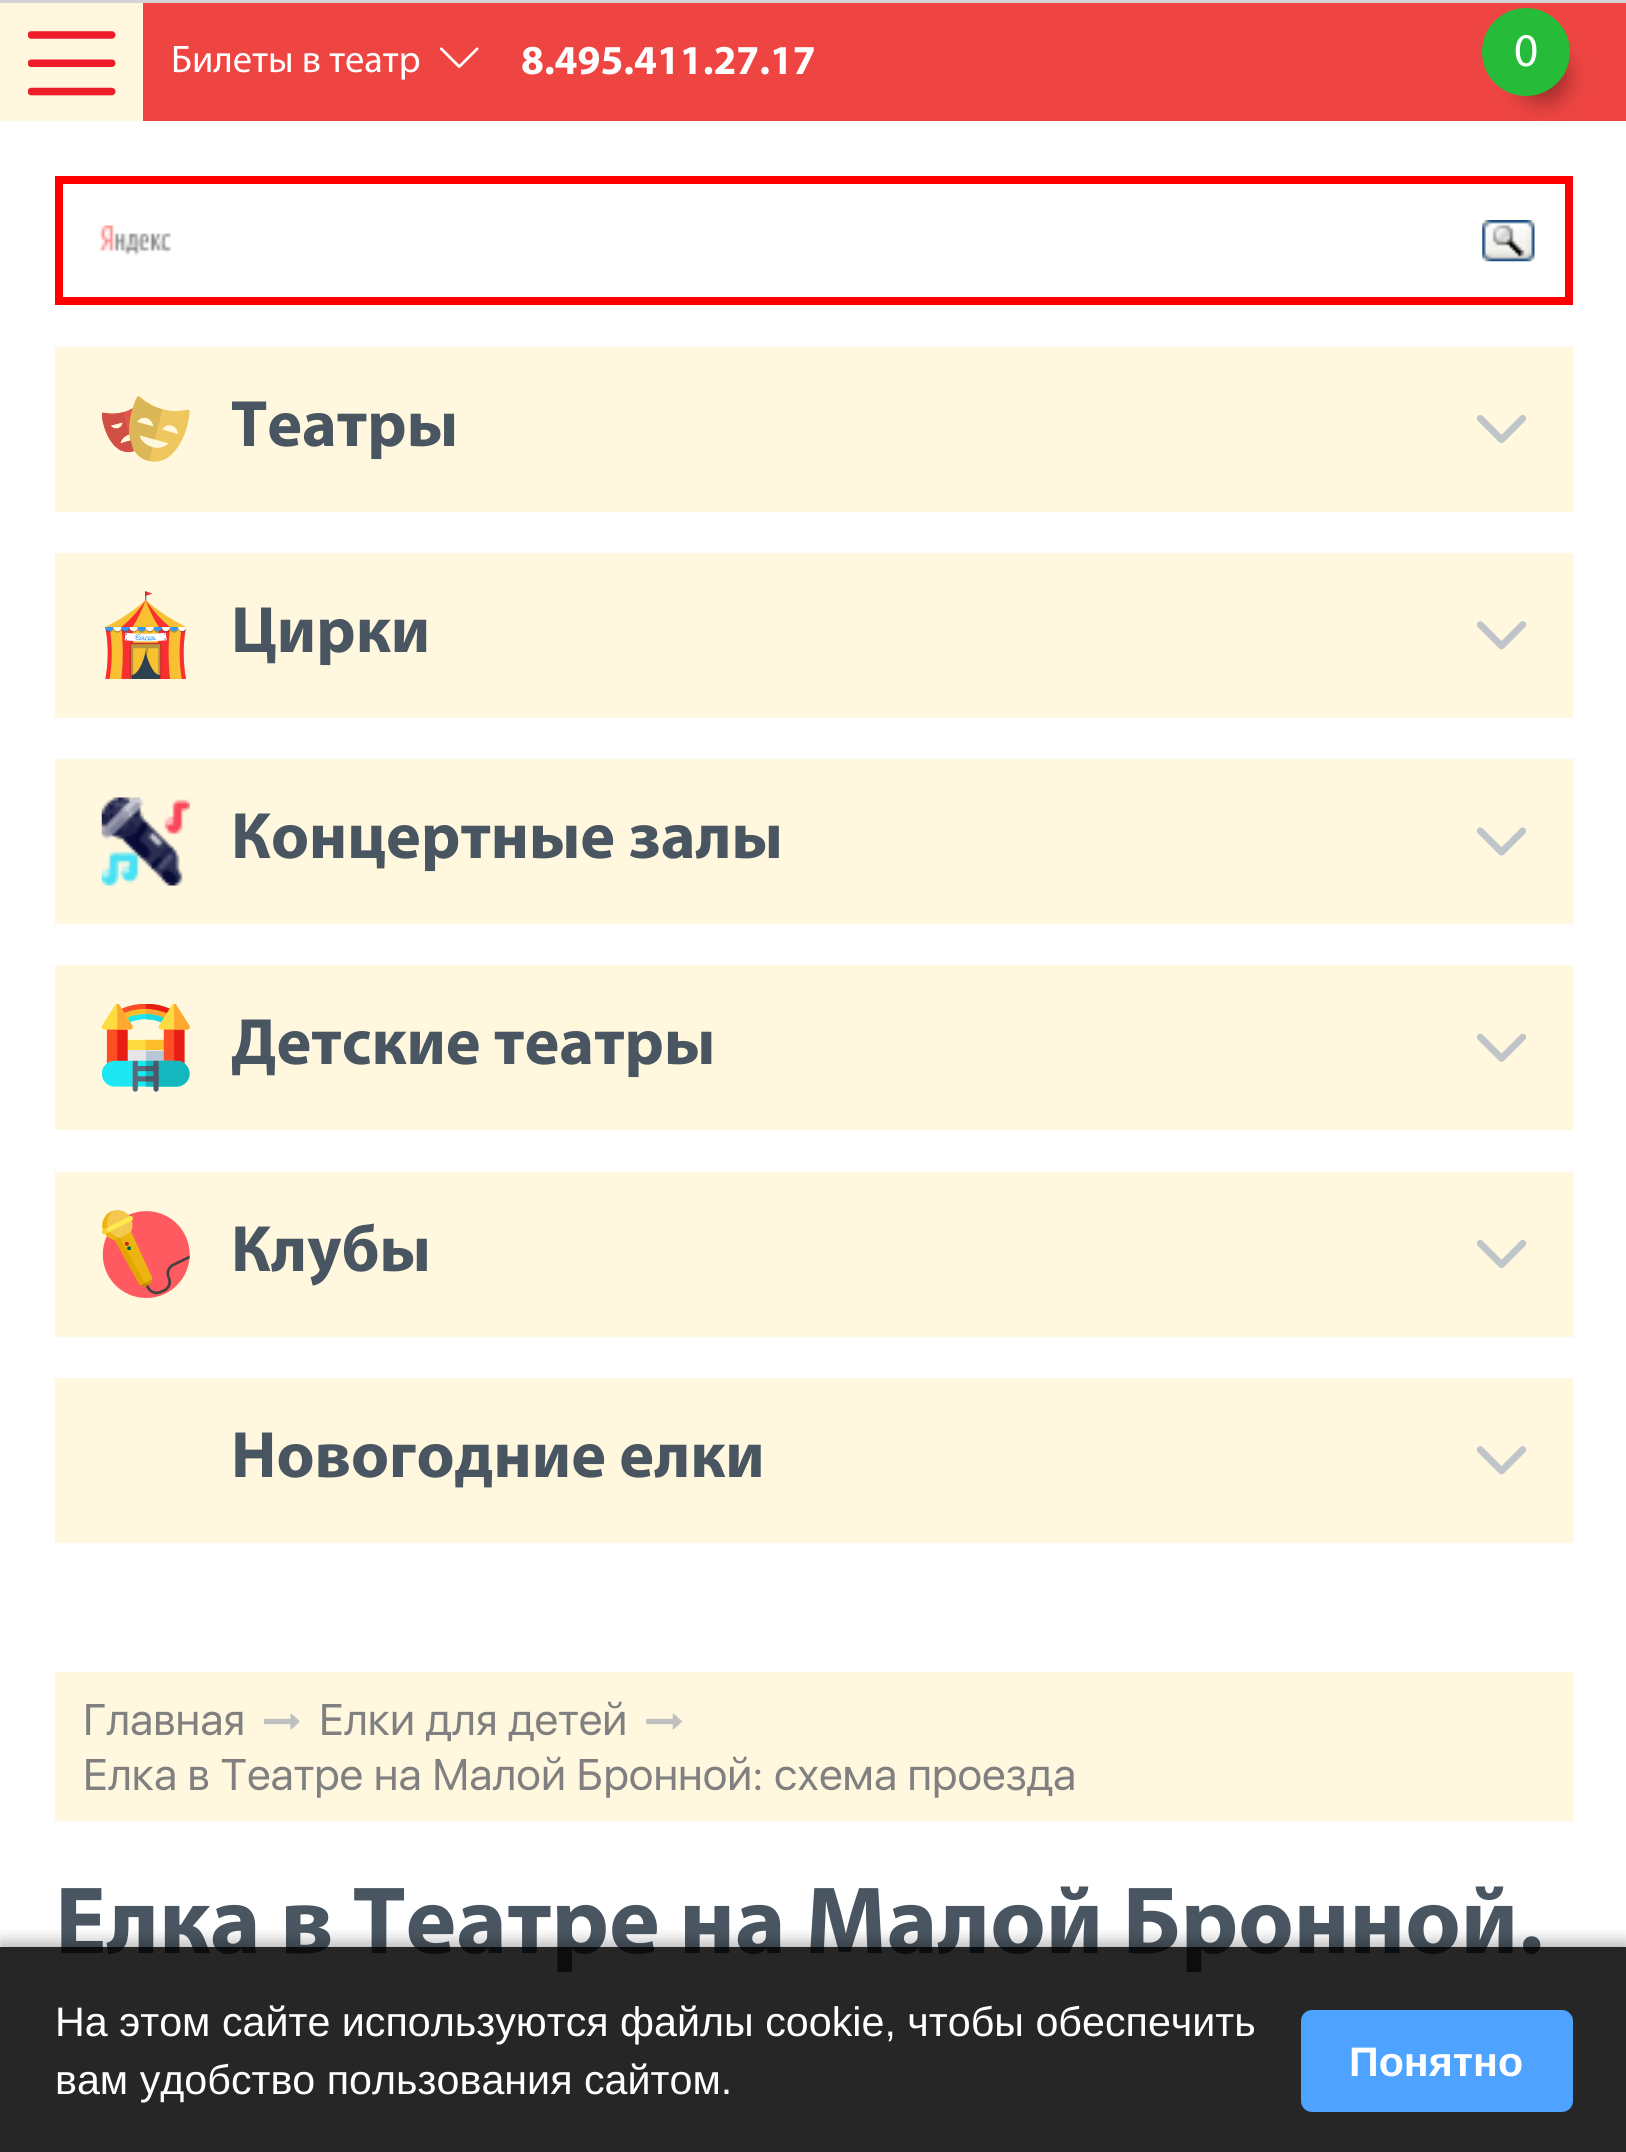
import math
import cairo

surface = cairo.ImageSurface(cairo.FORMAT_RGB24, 1626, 2152)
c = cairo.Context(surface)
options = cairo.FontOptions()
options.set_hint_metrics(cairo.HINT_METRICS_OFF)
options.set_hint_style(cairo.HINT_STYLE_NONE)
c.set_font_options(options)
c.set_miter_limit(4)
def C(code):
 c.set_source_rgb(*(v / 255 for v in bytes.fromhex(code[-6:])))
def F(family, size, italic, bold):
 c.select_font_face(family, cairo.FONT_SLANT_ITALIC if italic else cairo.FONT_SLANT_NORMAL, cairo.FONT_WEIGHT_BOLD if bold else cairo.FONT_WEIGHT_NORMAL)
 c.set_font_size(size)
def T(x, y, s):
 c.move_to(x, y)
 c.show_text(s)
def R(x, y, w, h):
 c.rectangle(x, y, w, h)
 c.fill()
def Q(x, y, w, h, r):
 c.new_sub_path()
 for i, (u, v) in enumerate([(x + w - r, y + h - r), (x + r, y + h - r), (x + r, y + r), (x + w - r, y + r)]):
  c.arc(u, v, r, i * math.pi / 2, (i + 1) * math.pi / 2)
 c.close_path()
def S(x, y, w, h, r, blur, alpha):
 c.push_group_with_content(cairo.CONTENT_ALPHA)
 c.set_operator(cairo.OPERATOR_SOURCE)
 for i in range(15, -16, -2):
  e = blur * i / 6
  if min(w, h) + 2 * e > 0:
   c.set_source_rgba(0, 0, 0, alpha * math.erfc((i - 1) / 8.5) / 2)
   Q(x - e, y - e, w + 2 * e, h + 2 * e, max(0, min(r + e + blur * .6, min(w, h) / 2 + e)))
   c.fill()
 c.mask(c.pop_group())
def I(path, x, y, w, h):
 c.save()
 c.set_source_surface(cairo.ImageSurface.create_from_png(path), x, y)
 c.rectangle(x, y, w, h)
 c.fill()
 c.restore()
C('ffffff')
c.paint()
C('ef4542')
R(143,3,1483,118)
F('Myriad',41.25,0,1)
C('ffffff')
T(521,74,'8.495.411.27.17')
C('000000')
S(1521,55,44,44,22,12.5,.4)
C('26bb38')
c.arc(1526,52,44,0,2 * math.pi)
c.fill()
F('Myriad',47,0,0)
C('ffffff')
T(1514,66,'0')
C('d4d4d4')
R(0,0,1626,3)
C('fff8df')
R(0,3,143,118)
I('1.png',28,31,88,65)
F('Myriad',38.5,0,0)
C('ffffff')
T(171,72,'Билеты в театр')
I('2.png',440,47,39,21)
c.rectangle(59,180,1510,121)
C('ff0000')
c.set_line_width(8)
c.stroke()
I('3.png',99,225,72,31)
I('4.png',1482,220,53,42)
C('fff8df')
R(55,347,1518,165)
I('5.png',102,396,88,66)
F('Myriad',66,0,1)
C('495661')
T(231,446,'Театры')
I('6.png',1477,415,49,28)
C('fff8df')
R(55,553,1518,165)
I('7.png',105,591,82,88)
C('495661')
T(231,652,'Цирки')
I('8.png',1477,621,49,29)
C('fff8df')
R(55,759,1518,165)
I('9.png',101,797,89,89)
C('495661')
T(231,858,'Концертные залы')
I('10.png',1477,827,49,29)
C('fff8df')
R(55,965,1518,165)
I('11.png',102,1004,88,88)
C('495661')
T(231,1064,'Детские театры')
I('12.png',1477,1033,49,29)
C('fff8df')
R(55,1172,1518,165)
I('13.png',102,1210,88,88)
C('495661')
T(231,1271,'Клубы')
I('6.png',1477,1240,49,28)
C('fff8df')
R(55,1378,1518,165)
C('495661')
T(231,1477,'Новогодние елки')
I('8.png',1477,1446,49,29)
C('fff8df')
R(55,1672,1518,149)
F('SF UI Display',44,0,0)
C('808080')
T(83,1735,'Главная')
I('14.png',264,1713,36,17)
T(319,1735,'Елки для детей')
I('15.png',646,1713,36,17)
T(83,1790,'Елка в Театре на Малой Бронной: схема проезда')
F('Myriad',96.25,0,1)
C('495661')
T(55,1953,'Елка в Театре на Малой Бронной.')
c.save()
c.rectangle(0,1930,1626,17)
c.clip()
C('000000')
S(0,1942,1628,206,0,8,.3)
c.restore()
c.set_source_rgba(0,0,0,0.85)
R(0,1947,1626,205)
F('Liberation Sans',41.25,0,0)
C('ffffff')
T(55,2036,'На этом сайте используются файлы cookie, чтобы обеспечить')
T(55,2094,'вам удобство пользования сайтом.')
C('4da3ff')
Q(1301,2010,272,102,11)
c.fill()
F('Liberation Sans',41.25,0,1)
C('ffffff')
T(1349,2076,'Понятно')
surface.write_to_png('o.png')
